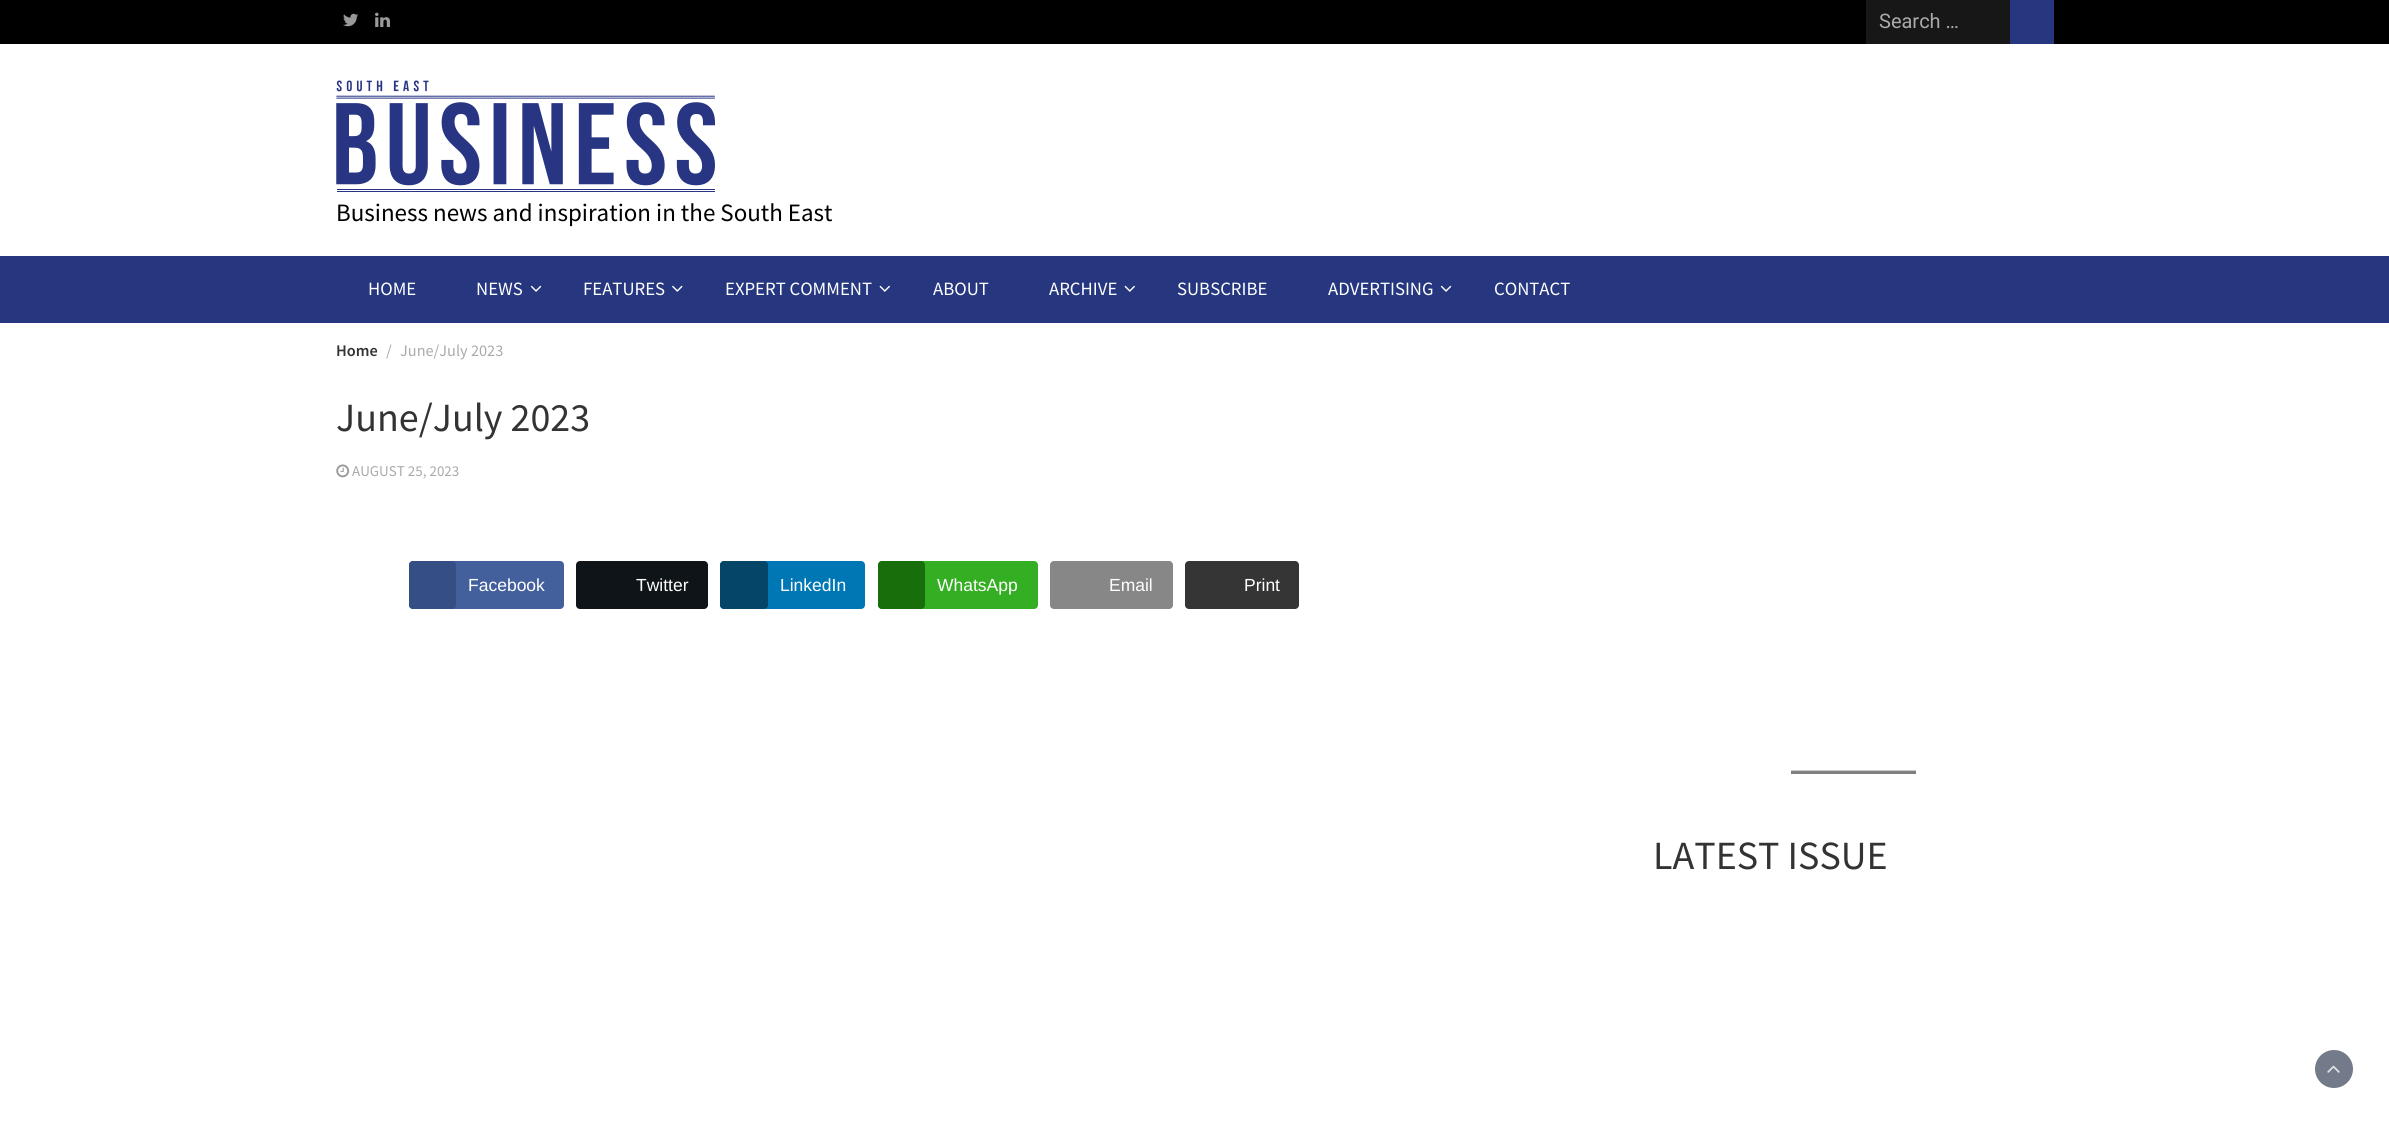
import math
import cairo

surface = cairo.ImageSurface(cairo.FORMAT_RGB24, 2389, 1125)
c = cairo.Context(surface)
options = cairo.FontOptions()
options.set_hint_metrics(cairo.HINT_METRICS_OFF)
options.set_hint_style(cairo.HINT_STYLE_NONE)
c.set_font_options(options)
c.set_miter_limit(4)
def C(code):
 c.set_source_rgb(*(v / 255 for v in bytes.fromhex(code[-6:])))
def F(family, size, italic, bold):
 c.select_font_face(family, cairo.FONT_SLANT_ITALIC if italic else cairo.FONT_SLANT_NORMAL, cairo.FONT_WEIGHT_BOLD if bold else cairo.FONT_WEIGHT_NORMAL)
 c.set_font_size(size)
def T(x, y, s):
 c.move_to(x, y)
 c.show_text(s)
def R(x, y, w, h):
 c.rectangle(x, y, w, h)
 c.fill()
def Q(x, y, w, h, r):
 c.new_sub_path()
 for i, (u, v) in enumerate([(x + w - r, y + h - r), (x + r, y + h - r), (x + r, y + r), (x + w - r, y + r)]):
  c.arc(u, v, r, i * math.pi / 2, (i + 1) * math.pi / 2)
 c.close_path()
def I(path, x, y, w, h):
 c.save()
 c.set_source_surface(cairo.ImageSurface.create_from_png(path), x, y)
 c.rectangle(x, y, w, h)
 c.fill()
 c.restore()
C('ffffff')
c.paint()
C('000000')
R(0,0,2389,44)
I('1.png',343,13,16,14)
I('2.png',375,12,15,15)
C('171717')
R(1866,0,144,44)
F('Roboto',20,0,0)
C('aaaaaa')
T(1879,28,'Search …')
C('263780')
R(2010,0,44,44)
I('3.png',336,80,379,112)
F('Source Sans Pro',25,0,0)
C('000000')
T(336,221,'Business news and inspiration in the South East')
C('263780')
R(0,256,2389,67)
F('Source Sans Pro',18.75,0,0)
C('ffffff')
T(368,295,'HOME')
T(476,295,'NEWS')
I('4.png',530,285,12,7)
T(583,295,'FEATURES')
I('5.png',672,285,11,7)
T(725,295,'EXPERT COMMENT')
I('6.png',879,285,11,7)
T(933,295,'ABOUT')
T(1049,295,'ARCHIVE')
I('6.png',1124,285,11,7)
T(1177,295,'SUBSCRIBE')
T(1328,295,'ADVERTISING')
I('4.png',1440,285,12,7)
T(1494,295,'CONTACT')
F('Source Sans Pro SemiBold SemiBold',16.25,0,0)
C('333333')
T(336,356,'Home')
F('Source Sans Pro',16.25,0,0)
C('aaaaaa')
T(386,356,'/')
T(400,356,'June/July 2023')
F('Source Sans Pro',40,0,0)
C('333333')
T(336,431,'June/July 2023')
I('7.png',336,464,14,14)
F('Source Sans Pro',15,0,0)
C('aaaaaa')
T(352,476,'AUGUST 25, 2023')
C('43609c')
Q(409,561,155,48,4)
c.fill()
C('354e83')
Q(409,561,47,48,4)
c.fill()
F('Liberation Sans',17.5,0,0)
C('ffffff')
T(468,591,'Facebook')
C('0f1419')
Q(576,561,132,48,4)
c.fill()
C('ffffff')
T(636,591,'Twitter')
C('0077b5')
Q(720,561,145,48,4)
c.fill()
C('044568')
Q(720,561,48,48,4)
c.fill()
C('ffffff')
T(780,591,'LinkedIn')
C('34af23')
Q(878,561,160,48,4)
c.fill()
C('176e0b')
Q(878,561,47,48,4)
c.fill()
C('ffffff')
T(937,591,'WhatsApp')
C('878787')
Q(1050,561,123,48,4)
c.fill()
C('ffffff')
T(1109,591,'Email')
C('353535')
Q(1185,561,114,48,4)
c.fill()
C('ffffff')
T(1244,591,'Print')
C('cccccc')
R(1791,770,125,1)
C('808080')
R(1791,771,125,3)
F('Source Sans Pro',40,0,0)
C('333333')
T(1653,869,'LATEST ISSUE')
C('737a89')
c.new_path()
c.arc(2334,1069,19,0,2 * math.pi)
c.fill()
I('8.png',2327,1065,13,8)
surface.write_to_png('o.png')
